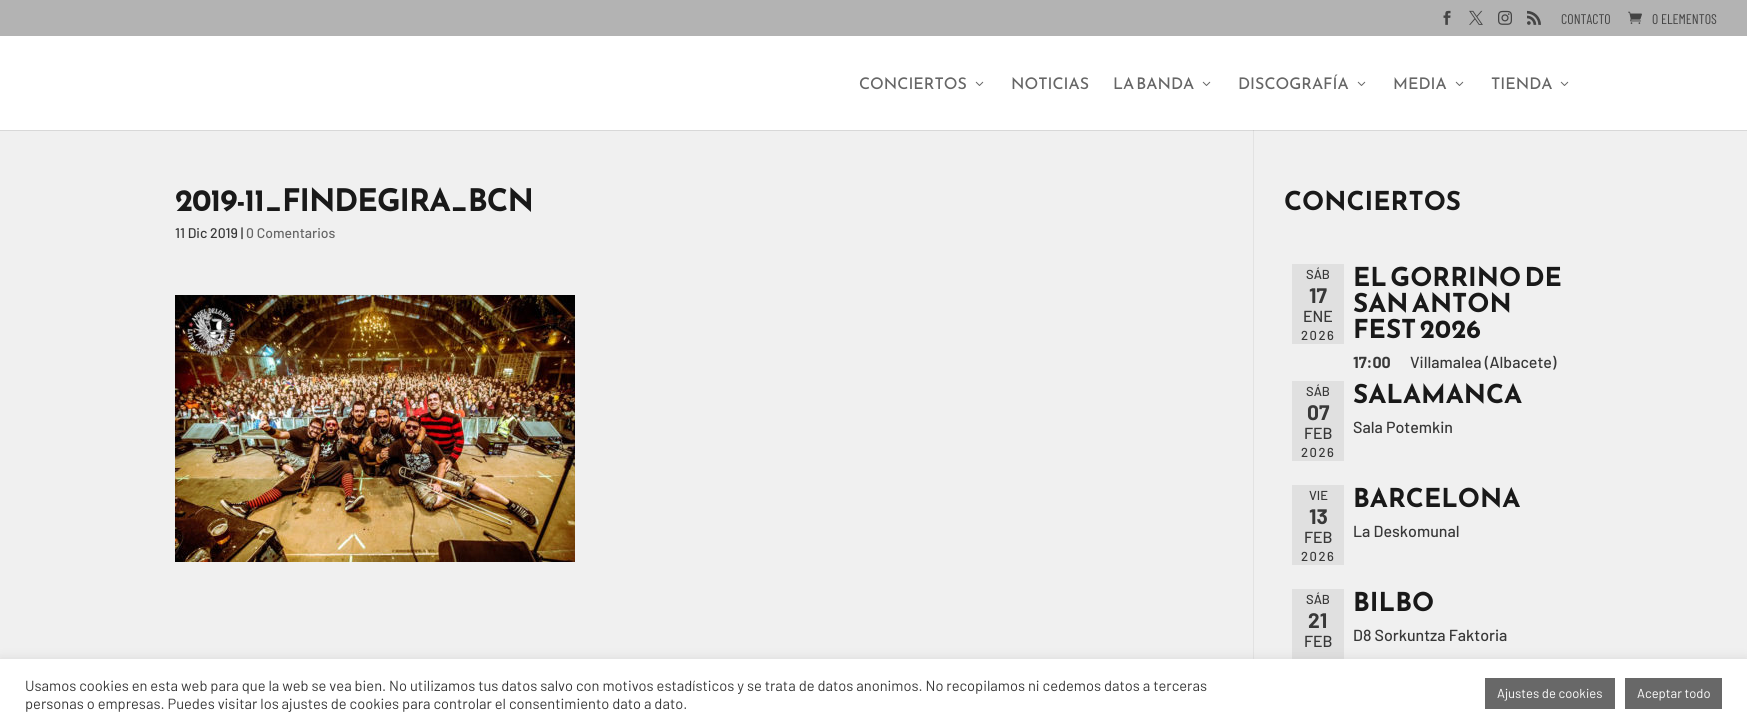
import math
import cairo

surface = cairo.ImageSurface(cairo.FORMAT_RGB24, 1747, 728)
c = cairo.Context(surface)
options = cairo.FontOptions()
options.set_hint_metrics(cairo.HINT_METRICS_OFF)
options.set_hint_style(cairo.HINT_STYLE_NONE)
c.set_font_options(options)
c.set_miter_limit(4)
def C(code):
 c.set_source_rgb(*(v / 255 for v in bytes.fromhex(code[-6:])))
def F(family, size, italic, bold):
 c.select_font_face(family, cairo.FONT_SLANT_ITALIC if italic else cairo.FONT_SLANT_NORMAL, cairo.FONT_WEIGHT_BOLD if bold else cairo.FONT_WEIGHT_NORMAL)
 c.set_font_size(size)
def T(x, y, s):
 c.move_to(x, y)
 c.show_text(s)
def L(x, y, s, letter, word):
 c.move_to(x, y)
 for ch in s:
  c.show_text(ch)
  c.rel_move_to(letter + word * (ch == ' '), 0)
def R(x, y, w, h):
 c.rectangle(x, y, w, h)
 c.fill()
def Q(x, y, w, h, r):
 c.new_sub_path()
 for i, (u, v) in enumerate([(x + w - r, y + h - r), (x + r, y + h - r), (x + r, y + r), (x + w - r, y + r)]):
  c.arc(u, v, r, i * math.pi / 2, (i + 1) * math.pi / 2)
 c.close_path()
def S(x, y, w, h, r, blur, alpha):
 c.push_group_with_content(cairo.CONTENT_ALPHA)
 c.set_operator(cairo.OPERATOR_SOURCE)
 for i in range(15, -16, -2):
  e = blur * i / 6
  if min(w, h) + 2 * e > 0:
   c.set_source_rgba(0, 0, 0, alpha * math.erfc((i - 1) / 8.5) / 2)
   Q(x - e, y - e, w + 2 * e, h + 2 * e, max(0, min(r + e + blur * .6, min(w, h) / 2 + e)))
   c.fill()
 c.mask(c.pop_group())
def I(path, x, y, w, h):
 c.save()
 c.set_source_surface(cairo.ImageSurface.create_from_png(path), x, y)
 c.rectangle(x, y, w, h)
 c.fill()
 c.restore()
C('f0f0f0')
c.paint()
C('b3b3b3')
R(0,0,1747,36)
I('1.png',1443,10,8,15)
I('2.png',1469,10,14,15)
I('3.png',1498,10,14,15)
I('4.png',1527,10,14,15)
F('Barlow Condensed',14,0,0)
C('444444')
T(1561,24,'CONTACTO')
I('5.png',1628,11,14,13)
T(1652,24,'0 ELEMENTOS')
C('ffffff')
R(0,36,1747,94)
F('Reem Kufi',16,0,0)
C('666666')
T(859,89,'CONCIERTOS')
I('6.png',975,81,9,5)
T(1011,89,'NOTICIAS')
T(1113,89,'LA BANDA')
I('6.png',1202,81,9,5)
T(1238,89,'DISCOGRAFÍA')
I('6.png',1357,81,9,5)
T(1393,89,'MEDIA')
I('6.png',1455,81,9,5)
T(1491,89,'TIENDA')
I('6.png',1560,81,9,5)
C('d8d8d8')
R(0,130,1747,1)
C('e2e2e2')
R(1253,130,1,529)
C('cbcbcb')
R(1253,130,1,1)
F('Reem Kufi',31,0,1)
C('191919')
L(175,211,'2019-11_FINDEGIRA_BCN',-1,0)
F('Barlow Medium',14,0,0)
C('383838')
T(175,238,'11 Dic 2019 |')
C('666666')
T(246,238,'0 Comentarios')
I('7.png',175,295,400,267)
F('Reem Kufi',26,0,1)
C('191919')
T(1284,210,'CONCIERTOS')
C('e0e0e0')
R(1292,264,52,80)
F('Barlow Medium',13,0,0)
C('383838')
T(1306,279,'SÁB')
F('Barlow',21,0,1)
T(1309,303,'17')
F('Barlow Medium',16,0,0)
T(1303,322,'ENE')
F('Barlow Medium',13,0,0)
L(1301,340,'2026',1.5,0)
F('Reem Kufi',26,0,1)
C('191919')
T(1353,286,'EL GORRINO DE')
T(1353,312,'SAN ANTON')
T(1353,338,'FEST 2026')
F('Barlow',16,0,1)
C('383838')
T(1353,368,'17:00')
F('Barlow Medium',16,0,0)
T(1410,368,'Villamalea (Albacete)')
C('e0e0e0')
R(1292,381,52,80)
F('Barlow Medium',13,0,0)
C('383838')
T(1306,396,'SÁB')
F('Barlow',21,0,1)
T(1307,420,'07')
F('Barlow Medium',16,0,0)
T(1304,439,'FEB')
F('Barlow Medium',13,0,0)
L(1301,457,'2026',1.5,0)
F('Reem Kufi',26,0,1)
C('191919')
T(1353,403,'SALAMANCA')
F('Barlow Medium',16,0,0)
C('383838')
T(1353,433,'Sala Potemkin')
C('e0e0e0')
R(1292,485,52,80)
F('Barlow Medium',13,0,0)
C('383838')
T(1309,500,'VIE')
F('Barlow',21,0,1)
T(1309,524,'13')
F('Barlow Medium',16,0,0)
T(1304,543,'FEB')
F('Barlow Medium',13,0,0)
L(1301,561,'2026',1.5,0)
F('Reem Kufi',26,0,1)
C('191919')
T(1353,507,'BARCELONA')
F('Barlow Medium',16,0,0)
C('383838')
T(1353,537,'La Deskomunal')
C('e0e0e0')
R(1292,589,52,70)
F('Barlow Medium',13,0,0)
C('383838')
T(1306,604,'SÁB')
F('Barlow',21,0,1)
T(1308,628,'21')
F('Barlow Medium',16,0,0)
T(1304,647,'FEB')
F('Reem Kufi',26,0,1)
C('191919')
T(1353,611,'BILBO')
F('Barlow Medium',16,0,0)
C('383838')
T(1353,641,'D8 Sorkuntza Faktoria')
C('acabab')
S(0,658,1747,69,0,5,.3)
C('ffffff')
R(0,659,1747,69)
F('Barlow',14.67,0,0)
C('383838')
T(25,691,'Usamos cookies en esta web para que la web se vea bien. No utilizamos tus datos salvo con motivos estadísticos y se trata de datos anonimos. No recopilamos ni cedemos datos a terceras')
T(25,709,'personas o empresas. Puedes visitar los ajustes de cookies para controlar el consentimiento dato a dato.')
C('686868')
R(1485,678,130,31)
F('Barlow',13,0,0)
C('ffffff')
T(1497,698,'Ajustes de cookies')
C('686868')
R(1625,678,97,31)
C('ffffff')
T(1637,698,'Aceptar todo')
surface.write_to_png('o.png')
